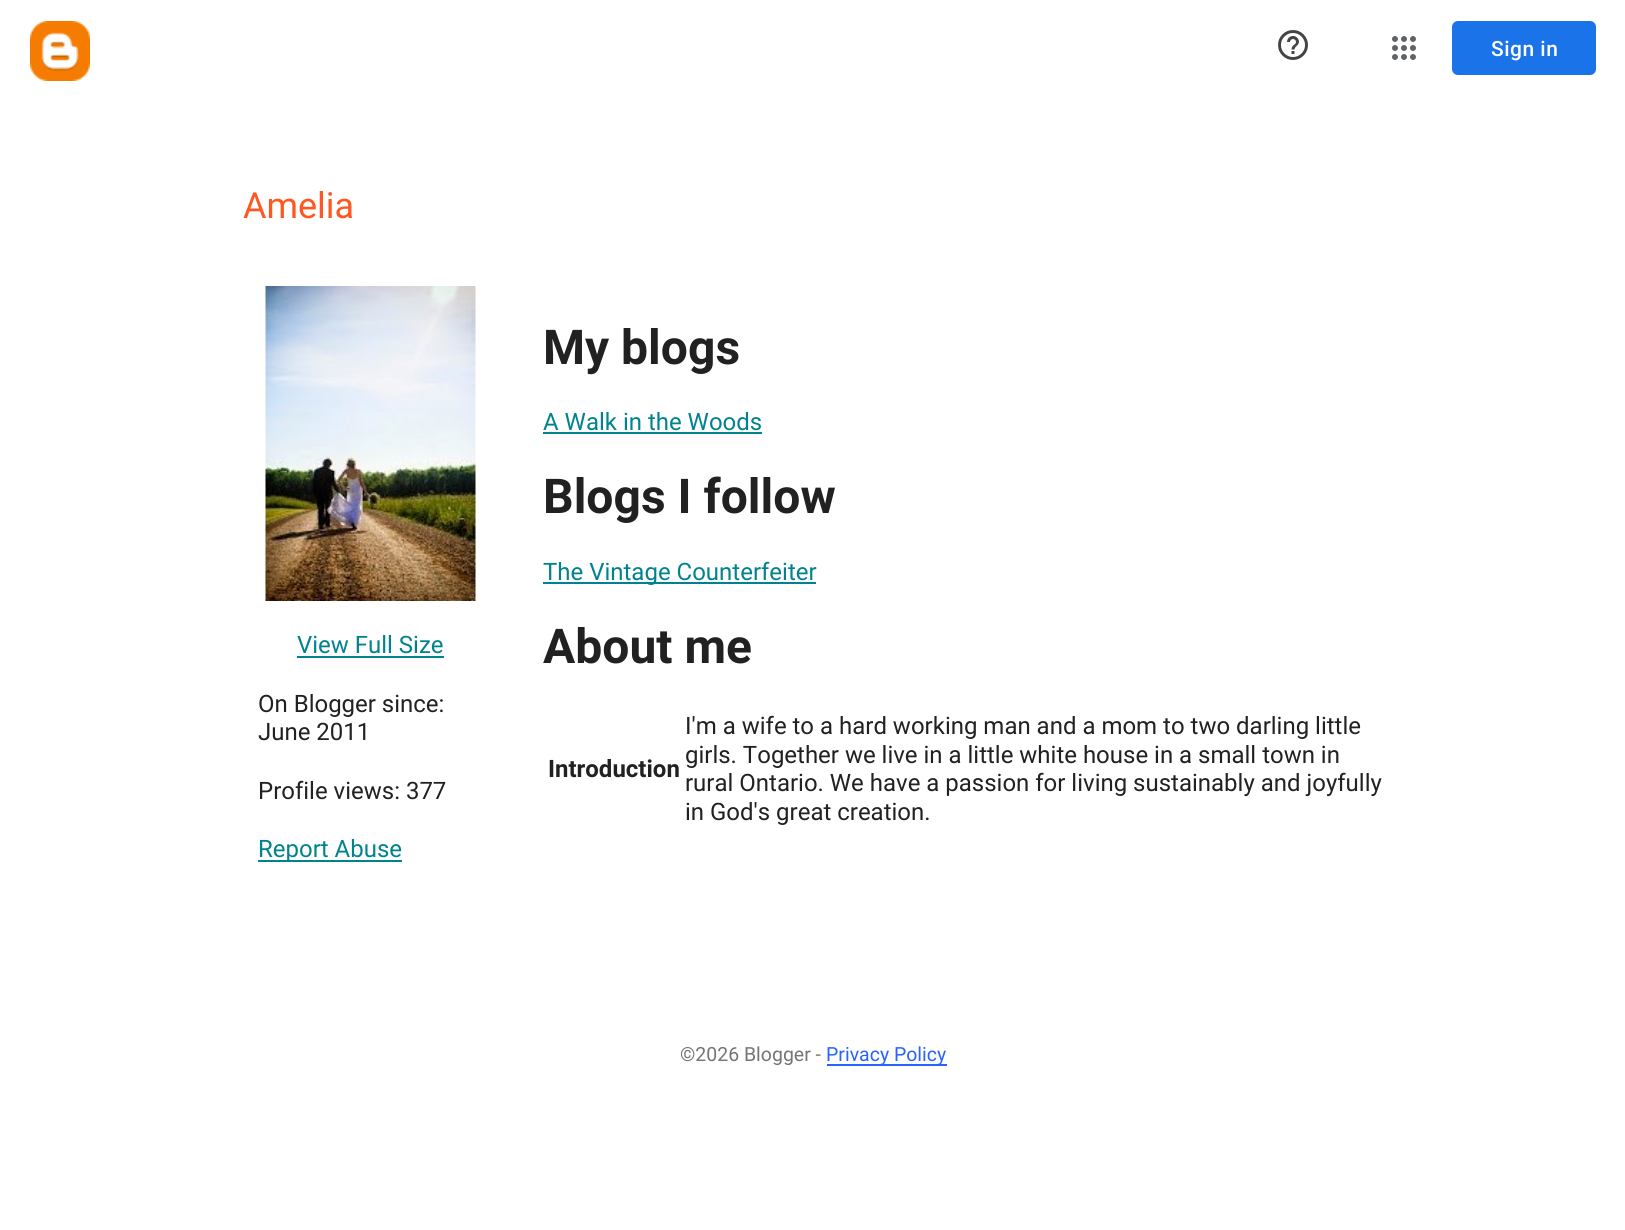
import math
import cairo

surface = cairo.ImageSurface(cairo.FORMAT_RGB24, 1625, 1230)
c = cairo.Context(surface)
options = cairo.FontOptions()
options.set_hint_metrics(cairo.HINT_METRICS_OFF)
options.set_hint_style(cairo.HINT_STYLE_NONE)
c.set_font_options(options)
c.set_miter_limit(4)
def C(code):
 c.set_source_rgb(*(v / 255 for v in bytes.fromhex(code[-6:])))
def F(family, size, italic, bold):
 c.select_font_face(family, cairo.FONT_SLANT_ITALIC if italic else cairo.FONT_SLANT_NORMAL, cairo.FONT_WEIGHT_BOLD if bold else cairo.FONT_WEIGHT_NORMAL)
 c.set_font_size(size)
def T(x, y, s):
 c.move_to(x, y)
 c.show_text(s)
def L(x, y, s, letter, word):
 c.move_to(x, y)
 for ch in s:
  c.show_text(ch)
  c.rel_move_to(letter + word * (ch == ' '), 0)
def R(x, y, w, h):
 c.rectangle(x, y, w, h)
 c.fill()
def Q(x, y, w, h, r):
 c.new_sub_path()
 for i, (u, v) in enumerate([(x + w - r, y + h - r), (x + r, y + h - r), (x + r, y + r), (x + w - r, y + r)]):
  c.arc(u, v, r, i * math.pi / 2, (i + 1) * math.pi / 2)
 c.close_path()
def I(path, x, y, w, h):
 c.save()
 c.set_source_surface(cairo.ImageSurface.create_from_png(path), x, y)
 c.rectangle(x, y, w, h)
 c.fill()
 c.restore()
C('ffffff')
c.paint()
I('1.png',30,21,60,60)
I('2.png',1278,30,30,30)
I('3.png',1392,36,24,24)
C('1a73e8')
Q(1452,21,144,54,6)
c.fill()
F('Roboto Medium',21,0,0)
C('ffffff')
L(1491,56,'Sign in',.5,0)
F('Roboto',36,0,0)
C('ff5722')
T(243,218,'Amelia')
I('4.png',265,286,211,315)
F('Roboto',24,0,0)
C('00838f')
T(297,653,'View Full Size')
R(297,656,147,2)
C('212121')
T(258,712,'On Blogger since:')
T(258,740,'June 2011')
T(258,799,'Profile views: 377')
C('00838f')
R(258,860,144,2)
T(258,857,'Report Abuse')
F('Roboto',48,0,1)
C('212121')
T(543,364,'My blogs')
F('Roboto',24,0,0)
C('00838f')
T(543,430,'A Walk in the Woods')
R(543,432,219,2)
F('Roboto',48,0,1)
C('212121')
T(543,513,'Blogs I follow')
C('00838f')
R(543,582,273,2)
F('Roboto',24,0,0)
T(543,580,'The Vintage Counterfeiter')
F('Roboto',48,0,1)
C('212121')
T(543,663,'About me')
F('Roboto',24,0,1)
T(548,777,'Introduction')
F('Roboto',24,0,0)
T(685,734,'I\'m a wife to a hard working man and a mom to two darling little')
T(685,763,'girls. Together we live in a little white house in a small town in')
T(685,791,'rural Ontario. We have a passion for living sustainably and joyfully')
T(685,820,'in God\'s great creation.')
F('Roboto',19.5,0,0)
C('757575')
T(680,1061,'©2026 Blogger -')
C('2962ff')
R(827,1064,120,2)
T(826,1061,'Privacy Policy')
surface.write_to_png('o.png')
